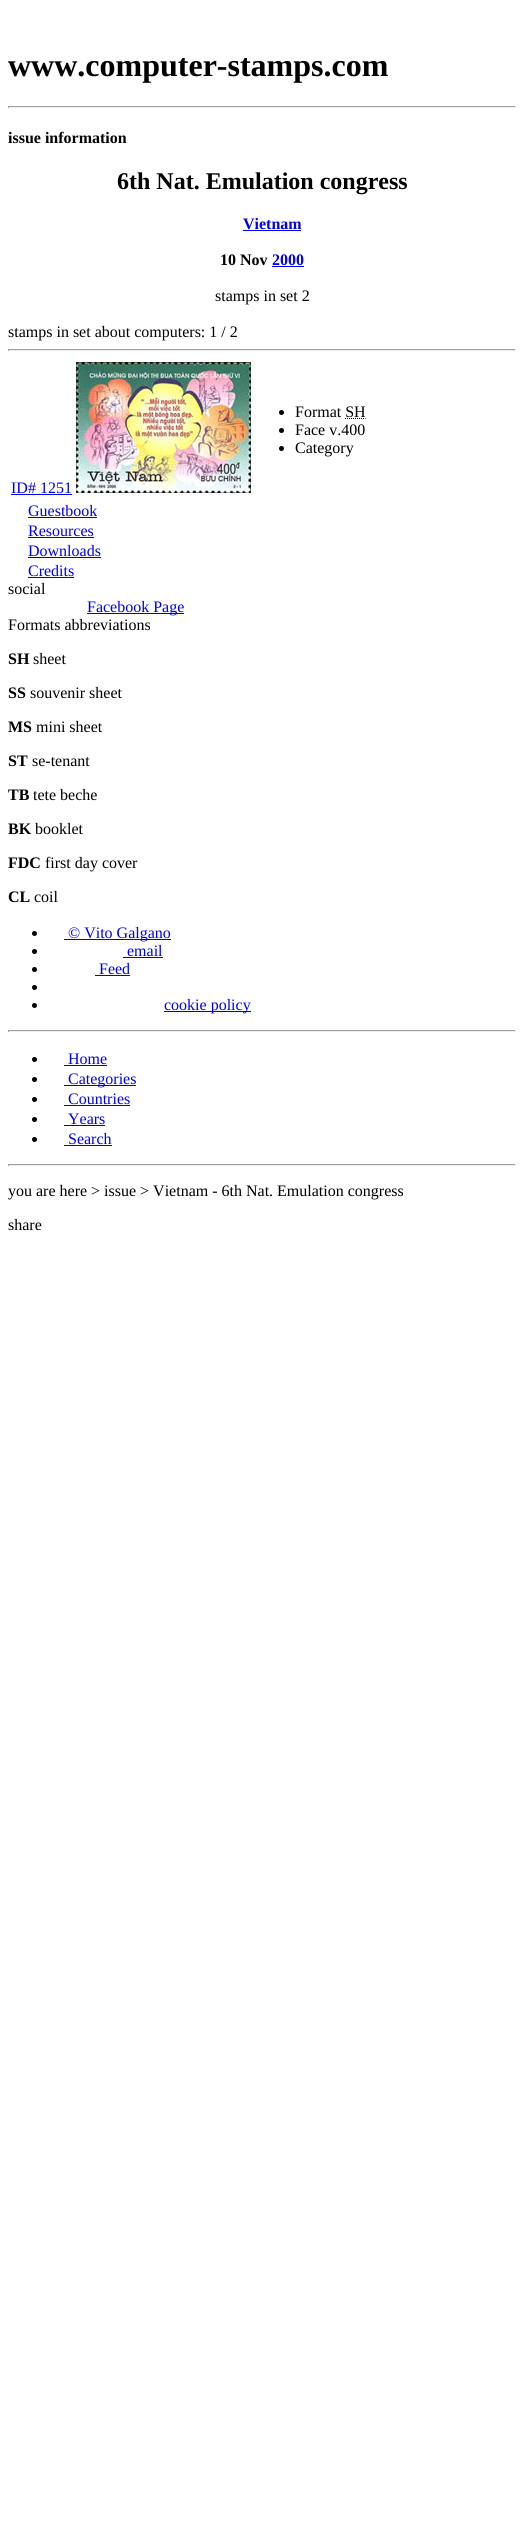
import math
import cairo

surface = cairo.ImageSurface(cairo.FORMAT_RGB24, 524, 2523)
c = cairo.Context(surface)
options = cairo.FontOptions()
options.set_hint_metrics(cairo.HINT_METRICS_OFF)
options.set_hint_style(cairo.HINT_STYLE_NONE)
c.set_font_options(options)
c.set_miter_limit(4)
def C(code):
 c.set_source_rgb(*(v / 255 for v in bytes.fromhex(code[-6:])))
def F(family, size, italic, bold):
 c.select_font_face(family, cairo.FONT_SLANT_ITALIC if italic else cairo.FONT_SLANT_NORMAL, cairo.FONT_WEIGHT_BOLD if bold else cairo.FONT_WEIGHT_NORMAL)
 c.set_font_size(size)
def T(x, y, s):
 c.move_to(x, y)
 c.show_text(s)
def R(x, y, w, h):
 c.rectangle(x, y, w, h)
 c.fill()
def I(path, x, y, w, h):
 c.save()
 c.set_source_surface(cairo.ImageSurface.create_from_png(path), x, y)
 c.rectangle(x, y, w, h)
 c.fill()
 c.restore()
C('ffffff')
c.paint()
F('Liberation Serif',32,0,1)
C('000000')
T(8,76,'www.computer-stamps.com')
C('9f9f9f')
R(8,106,508,1)
C('eeeeee')
R(515,106,1,2)
R(8,107,508,1)
C('9f9f9f')
R(8,106,1,2)
F('Liberation Serif',16,0,1)
C('000000')
T(8,143,'issue information')
F('Liberation Serif',24,0,1)
T(117,189,'6th Nat. Emulation congress')
F('Liberation Serif',16,0,1)
C('0000ee')
T(243,229,'Vietnam')
R(243,230,58,1)
C('000000')
T(220,265,'10 Nov')
C('0000ee')
T(272,265,'2000')
R(272,266,32,1)
F('Liberation Serif',16,0,0)
C('000000')
T(215,301,'stamps in set 2')
T(8,337,'stamps in set about computers: 1 / 2')
C('9f9f9f')
R(8,349,508,1)
C('eeeeee')
R(515,349,1,2)
R(8,350,508,1)
C('9f9f9f')
R(8,349,1,2)
C('000000')
c.new_path()
c.arc(281.5,412.5,2.5,0,2 * math.pi)
c.fill()
T(295,417,'Format SH')
c.new_path()
c.move_to(345,418.5)
c.line_to(365.5,418.5)
c.set_line_width(1)
c.set_dash([1,1])
c.stroke()
c.arc(281.5,430.5,2.5,0,2 * math.pi)
c.fill()
T(295,435,'Face v.400')
c.new_path()
c.arc(281.5,448.5,2.5,0,2 * math.pi)
c.fill()
T(295,453,'Category')
C('0000ee')
T(11,493,'ID# 1251')
R(11,494,61,1)
I('1.png',76,362,175,131)
T(28,516,'Guestbook')
R(28,517,69,1)
T(28,536,'Resources')
R(28,537,66,1)
T(28,556,'Downloads')
R(28,557,73,1)
T(28,576,'Credits')
R(28,577,46,1)
C('000000')
T(8,594,'social')
C('0000ee')
R(87,613,97,1)
T(87,612,'Facebook Page')
C('000000')
T(8,630,'Formats abbreviations')
F('Liberation Serif',16,0,1)
T(8,664,'SH')
F('Liberation Serif',16,0,0)
T(33,664,'sheet')
F('Liberation Serif',16,0,1)
T(8,698,'SS')
F('Liberation Serif',16,0,0)
T(30,698,'souvenir sheet')
F('Liberation Serif',16,0,1)
T(8,732,'MS')
F('Liberation Serif',16,0,0)
T(36,732,'mini sheet')
F('Liberation Serif',16,0,1)
T(8,766,'ST')
F('Liberation Serif',16,0,0)
T(32,766,'se-tenant')
F('Liberation Serif',16,0,1)
T(8,800,'TB')
F('Liberation Serif',16,0,0)
T(33,800,'tete beche')
F('Liberation Serif',16,0,1)
T(8,834,'BK')
F('Liberation Serif',16,0,0)
T(35,834,'booklet')
F('Liberation Serif',16,0,1)
T(8,868,'FDC')
F('Liberation Serif',16,0,0)
T(45,868,'first day cover')
F('Liberation Serif',16,0,1)
T(8,902,'CL')
F('Liberation Serif',16,0,0)
T(34,902,'coil')
c.new_path()
c.arc(34.5,933.5,2.5,0,2 * math.pi)
c.fill()
C('0000ee')
R(64,939,107,1)
T(68,938,'© Vito Galgano')
C('000000')
c.new_path()
c.arc(34.5,951.5,2.5,0,2 * math.pi)
c.fill()
C('0000ee')
T(127,956,'email')
R(123,957,40,1)
C('000000')
c.new_path()
c.arc(34.5,969.5,2.5,0,2 * math.pi)
c.fill()
C('0000ee')
T(99,974,'Feed')
R(95,975,35,1)
C('000000')
c.new_path()
c.arc(34.5,987.5,2.5,0,2 * math.pi)
c.fill()
c.arc(34.5,1005.5,2.5,0,2 * math.pi)
c.fill()
C('0000ee')
R(164,1011,87,1)
T(164,1010,'cookie policy')
C('9f9f9f')
R(8,1030,508,1)
C('eeeeee')
R(515,1030,1,2)
R(8,1031,508,1)
C('9f9f9f')
R(8,1030,1,2)
C('000000')
c.new_path()
c.arc(34.5,1059.5,2.5,0,2 * math.pi)
c.fill()
C('0000ee')
T(68,1064,'Home')
R(64,1065,43,1)
C('000000')
c.new_path()
c.arc(34.5,1079.5,2.5,0,2 * math.pi)
c.fill()
C('0000ee')
R(64,1085,72,1)
T(68,1084,'Categories')
C('000000')
c.new_path()
c.arc(34.5,1099.5,2.5,0,2 * math.pi)
c.fill()
C('0000ee')
T(68,1104,'Countries')
R(64,1105,66,1)
C('000000')
c.new_path()
c.arc(34.5,1119.5,2.5,0,2 * math.pi)
c.fill()
C('0000ee')
T(68,1124,'Years')
R(64,1125,41,1)
C('000000')
c.new_path()
c.arc(34.5,1139.5,2.5,0,2 * math.pi)
c.fill()
C('0000ee')
T(68,1144,'Search')
R(64,1145,48,1)
C('9f9f9f')
R(8,1164,508,1)
C('eeeeee')
R(515,1164,1,2)
R(8,1165,508,1)
C('9f9f9f')
R(8,1164,1,2)
C('000000')
T(8,1196,'you are here > issue > Vietnam - 6th Nat. Emulation congress')
T(8,1230,'share')
surface.write_to_png('o.png')
